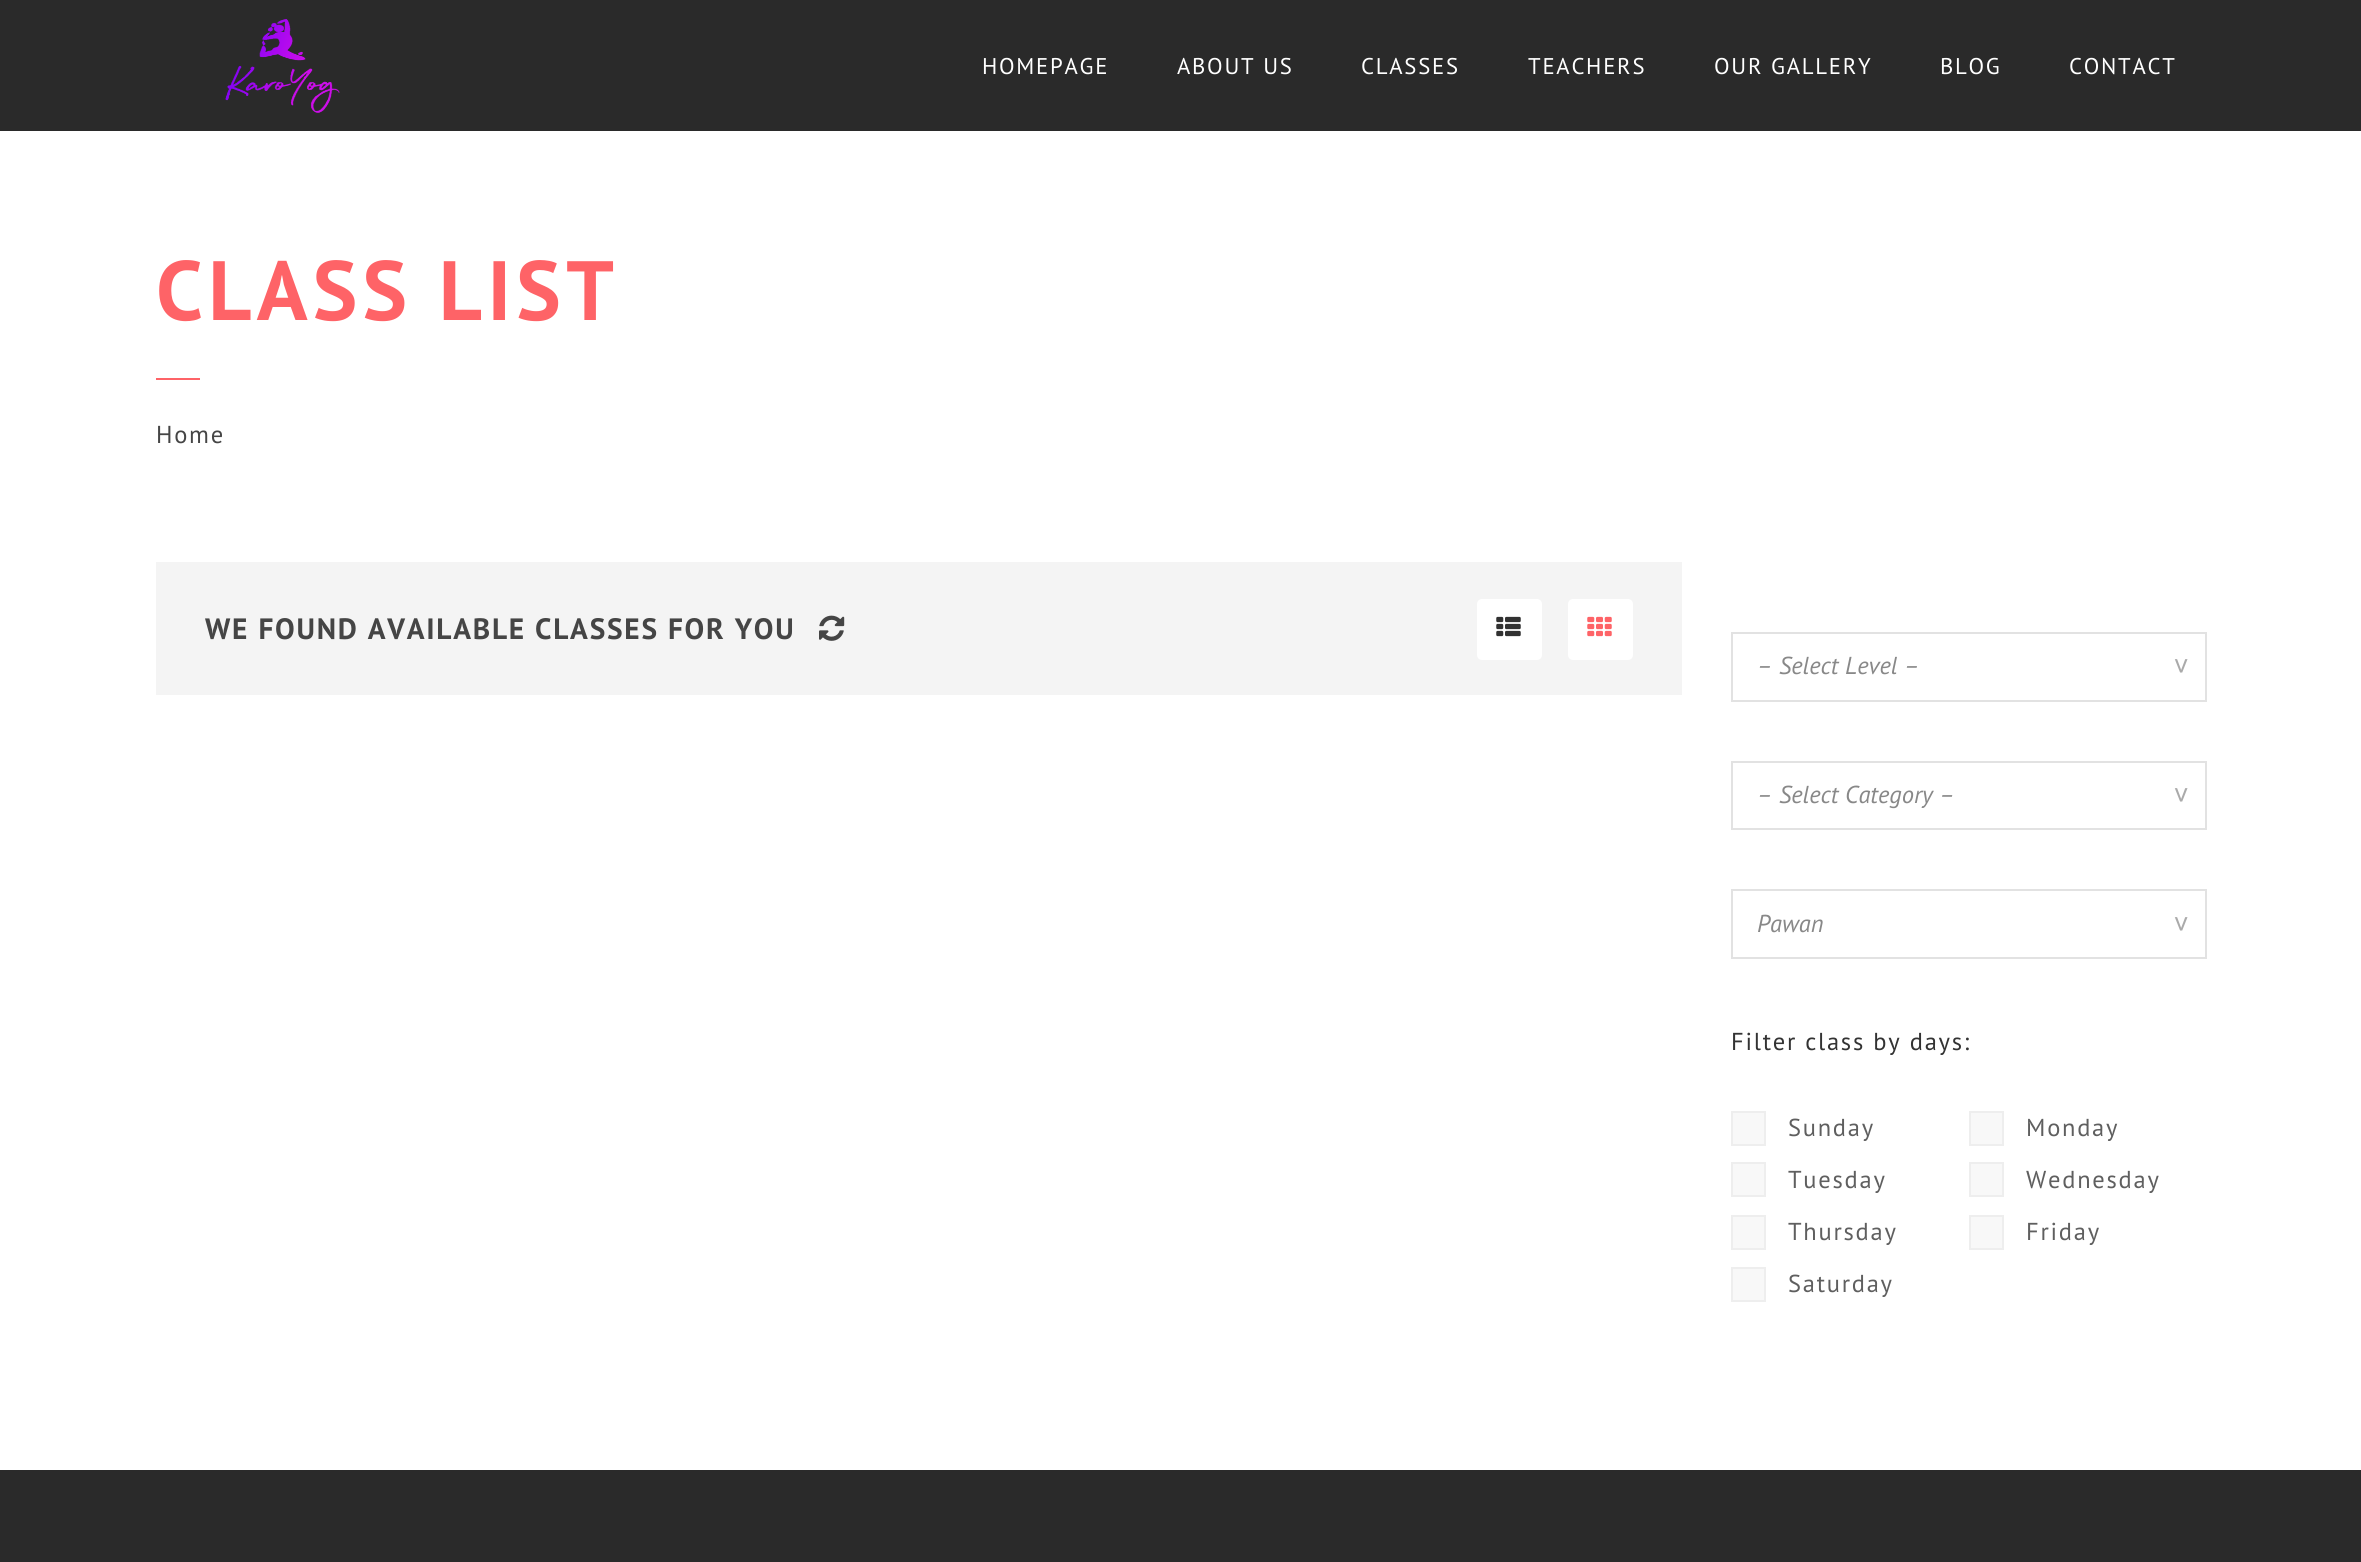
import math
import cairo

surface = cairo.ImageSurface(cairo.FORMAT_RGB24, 2361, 1562)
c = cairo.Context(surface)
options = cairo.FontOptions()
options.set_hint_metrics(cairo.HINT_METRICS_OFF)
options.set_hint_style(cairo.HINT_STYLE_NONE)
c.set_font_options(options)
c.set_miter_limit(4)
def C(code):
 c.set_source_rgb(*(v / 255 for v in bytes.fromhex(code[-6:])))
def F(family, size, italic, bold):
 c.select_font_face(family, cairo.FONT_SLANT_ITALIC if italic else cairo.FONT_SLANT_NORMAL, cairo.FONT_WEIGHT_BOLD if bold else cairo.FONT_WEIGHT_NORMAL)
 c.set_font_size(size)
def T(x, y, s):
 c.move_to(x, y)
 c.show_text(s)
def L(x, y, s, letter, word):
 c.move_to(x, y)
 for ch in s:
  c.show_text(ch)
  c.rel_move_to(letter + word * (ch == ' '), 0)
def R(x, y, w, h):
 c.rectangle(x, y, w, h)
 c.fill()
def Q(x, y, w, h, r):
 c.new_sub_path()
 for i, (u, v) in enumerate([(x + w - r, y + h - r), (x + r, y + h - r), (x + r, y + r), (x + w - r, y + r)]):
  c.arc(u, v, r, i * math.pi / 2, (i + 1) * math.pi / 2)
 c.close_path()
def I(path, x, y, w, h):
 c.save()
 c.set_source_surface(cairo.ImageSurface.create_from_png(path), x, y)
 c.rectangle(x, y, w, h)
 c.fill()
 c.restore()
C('ffffff')
c.paint()
C('2a2a2a')
R(0,0,2361,131)
I('1.png',225,19,115,94)
F('PT Sans',22.75,0,0)
C('ffffff')
L(982,74,'HOMEPAGE',1.75,0)
L(1177,74,'ABOUT US',1.75,0)
L(1361,74,'CLASSES',1.75,0)
L(1528,74,'TEACHERS',1.75,0)
L(1714,74,'OUR GALLERY',1.75,0)
L(1940,74,'BLOG',1.75,0)
L(2069,74,'CONTACT',1.75,0)
F('PT Sans',84,0,1)
C('fe6367')
L(156,320,'CLASS LIST',5.25,0)
R(156,378,44,2)
F('PT Sans',24.5,0,0)
C('454545')
L(156,443,'Home',1.75,0)
C('f4f4f4')
R(156,562,1526,133)
F('PT Sans',29.4,0,1)
C('454545')
L(205,639,'WE FOUND AVAILABLE CLASSES FOR YOU',1.75,0)
I('2.png',819,615,26,26)
C('ffffff')
Q(1477,599,65,61,5)
c.fill()
I('3.png',1496,616,25,21)
Q(1568,599,65,61,5)
c.fill()
I('4.png',1587,616,25,21)
c.rectangle(1732,633,474,68)
C('e2e2e2')
c.stroke()
F('PT Sans',24.5,1,0)
C('888888')
T(1757,674,'– Select Level –')
F('DejaVu Sans Mono',26,0,0)
C('aaaaaa')
c.save()
c.translate(2173,658)
c.rotate(90 * math.pi / 180)
L(0,0,'>',1.75,0)
c.restore()
c.rectangle(1732,762,474,67)
C('e2e2e2')
c.stroke()
F('PT Sans',24.5,1,0)
C('888888')
T(1757,803,'– Select Category –')
F('DejaVu Sans Mono',26,0,0)
C('aaaaaa')
c.save()
c.translate(2173,787)
c.rotate(90 * math.pi / 180)
L(0,0,'>',1.75,0)
c.restore()
c.rectangle(1732,890,474,68)
C('e2e2e2')
c.stroke()
F('PT Sans',24.5,1,0)
C('888888')
T(1757,932,'Pawan')
F('DejaVu Sans Mono',26,0,0)
C('aaaaaa')
c.save()
c.translate(2173,916)
c.rotate(90 * math.pi / 180)
L(0,0,'>',1.75,0)
c.restore()
F('PT Sans',24.5,0,0)
C('333333')
L(1731,1050,'Filter class by days:',1.75,0)
C('f8f8f8')
c.rectangle(1732,1112,33,33)
c.fill_preserve()
C('eeeeee')
c.stroke()
C('5f5f5f')
L(1788,1136,'Sunday',1.75,0)
C('f8f8f8')
c.rectangle(1970,1112,33,33)
c.fill_preserve()
C('eeeeee')
c.stroke()
C('5f5f5f')
L(2026,1136,'Monday',1.75,0)
C('f8f8f8')
c.rectangle(1732,1163,33,33)
c.fill_preserve()
C('eeeeee')
c.stroke()
C('5f5f5f')
L(1788,1188,'Tuesday',1.75,0)
C('f8f8f8')
c.rectangle(1970,1163,33,33)
c.fill_preserve()
C('eeeeee')
c.stroke()
C('5f5f5f')
L(2026,1188,'Wednesday',1.75,0)
C('f8f8f8')
c.rectangle(1732,1216,33,33)
c.fill_preserve()
C('eeeeee')
c.stroke()
C('5f5f5f')
L(1788,1240,'Thursday',1.75,0)
C('f8f8f8')
c.rectangle(1970,1216,33,33)
c.fill_preserve()
C('eeeeee')
c.stroke()
C('5f5f5f')
L(2026,1240,'Friday',1.75,0)
C('f8f8f8')
c.rectangle(1732,1268,33,33)
c.fill_preserve()
C('eeeeee')
c.stroke()
C('5f5f5f')
L(1788,1292,'Saturday',1.75,0)
C('2a2a2a')
R(0,1470,2361,92)
surface.write_to_png('o.png')
